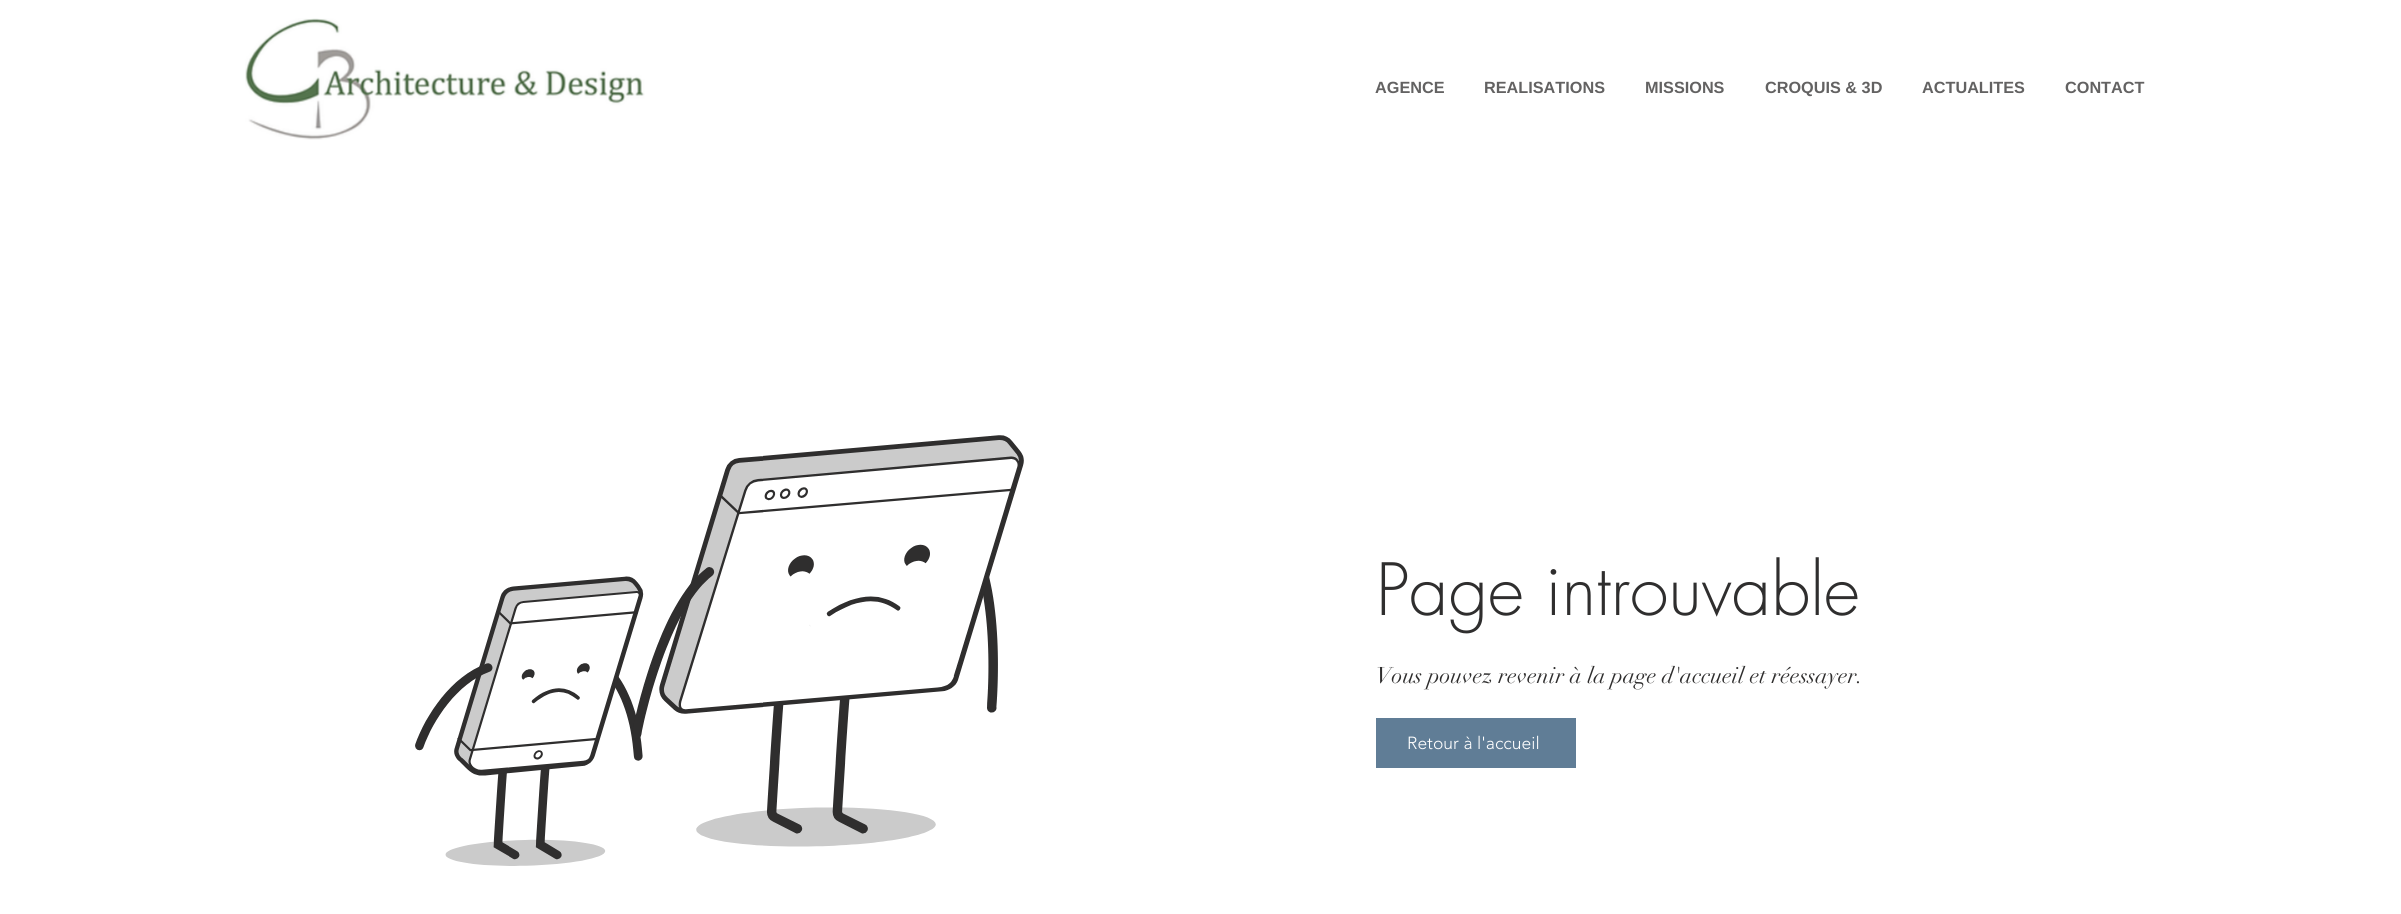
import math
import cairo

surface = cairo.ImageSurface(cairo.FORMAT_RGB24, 2401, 914)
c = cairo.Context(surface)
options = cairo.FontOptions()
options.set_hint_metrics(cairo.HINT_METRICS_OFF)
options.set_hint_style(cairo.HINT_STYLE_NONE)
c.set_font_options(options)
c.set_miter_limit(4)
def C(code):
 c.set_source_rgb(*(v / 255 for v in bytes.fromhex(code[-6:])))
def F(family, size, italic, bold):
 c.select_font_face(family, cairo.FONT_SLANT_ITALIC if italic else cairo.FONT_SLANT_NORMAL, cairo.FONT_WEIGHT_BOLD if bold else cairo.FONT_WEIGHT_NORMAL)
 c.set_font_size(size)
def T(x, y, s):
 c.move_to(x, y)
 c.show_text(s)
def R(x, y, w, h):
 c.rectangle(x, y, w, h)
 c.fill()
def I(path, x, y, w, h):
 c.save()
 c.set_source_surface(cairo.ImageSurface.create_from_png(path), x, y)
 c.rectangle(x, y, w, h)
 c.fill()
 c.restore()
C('ffffff')
c.paint()
I('1.png',245,18,400,122)
F('Liberation Sans',16.25,0,1)
C('636262')
T(1375,93,'AGENCE')
T(1484,93,'REALISATIONS')
T(1645,93,'MISSIONS')
T(1765,93,'CROQUIS & 3D')
T(1922,93,'ACTUALITES')
T(2065,93,'CONTACT')
I('2.png',415,435,609,431)
F('futura Light',70,0,0)
C('2f2e2e')
T(1376,615,'Page introuvable')
F('didot',22.5,0,0)
T(1376,683,'Vous pouvez revenir à la page d\'accueil et réessayer.')
C('607d96')
R(1376,718,200,50)
F('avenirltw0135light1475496 Light',17.5,0,0)
C('ffffff')
T(1407,749,'Retour à l\'accueil')
surface.write_to_png('o.png')
